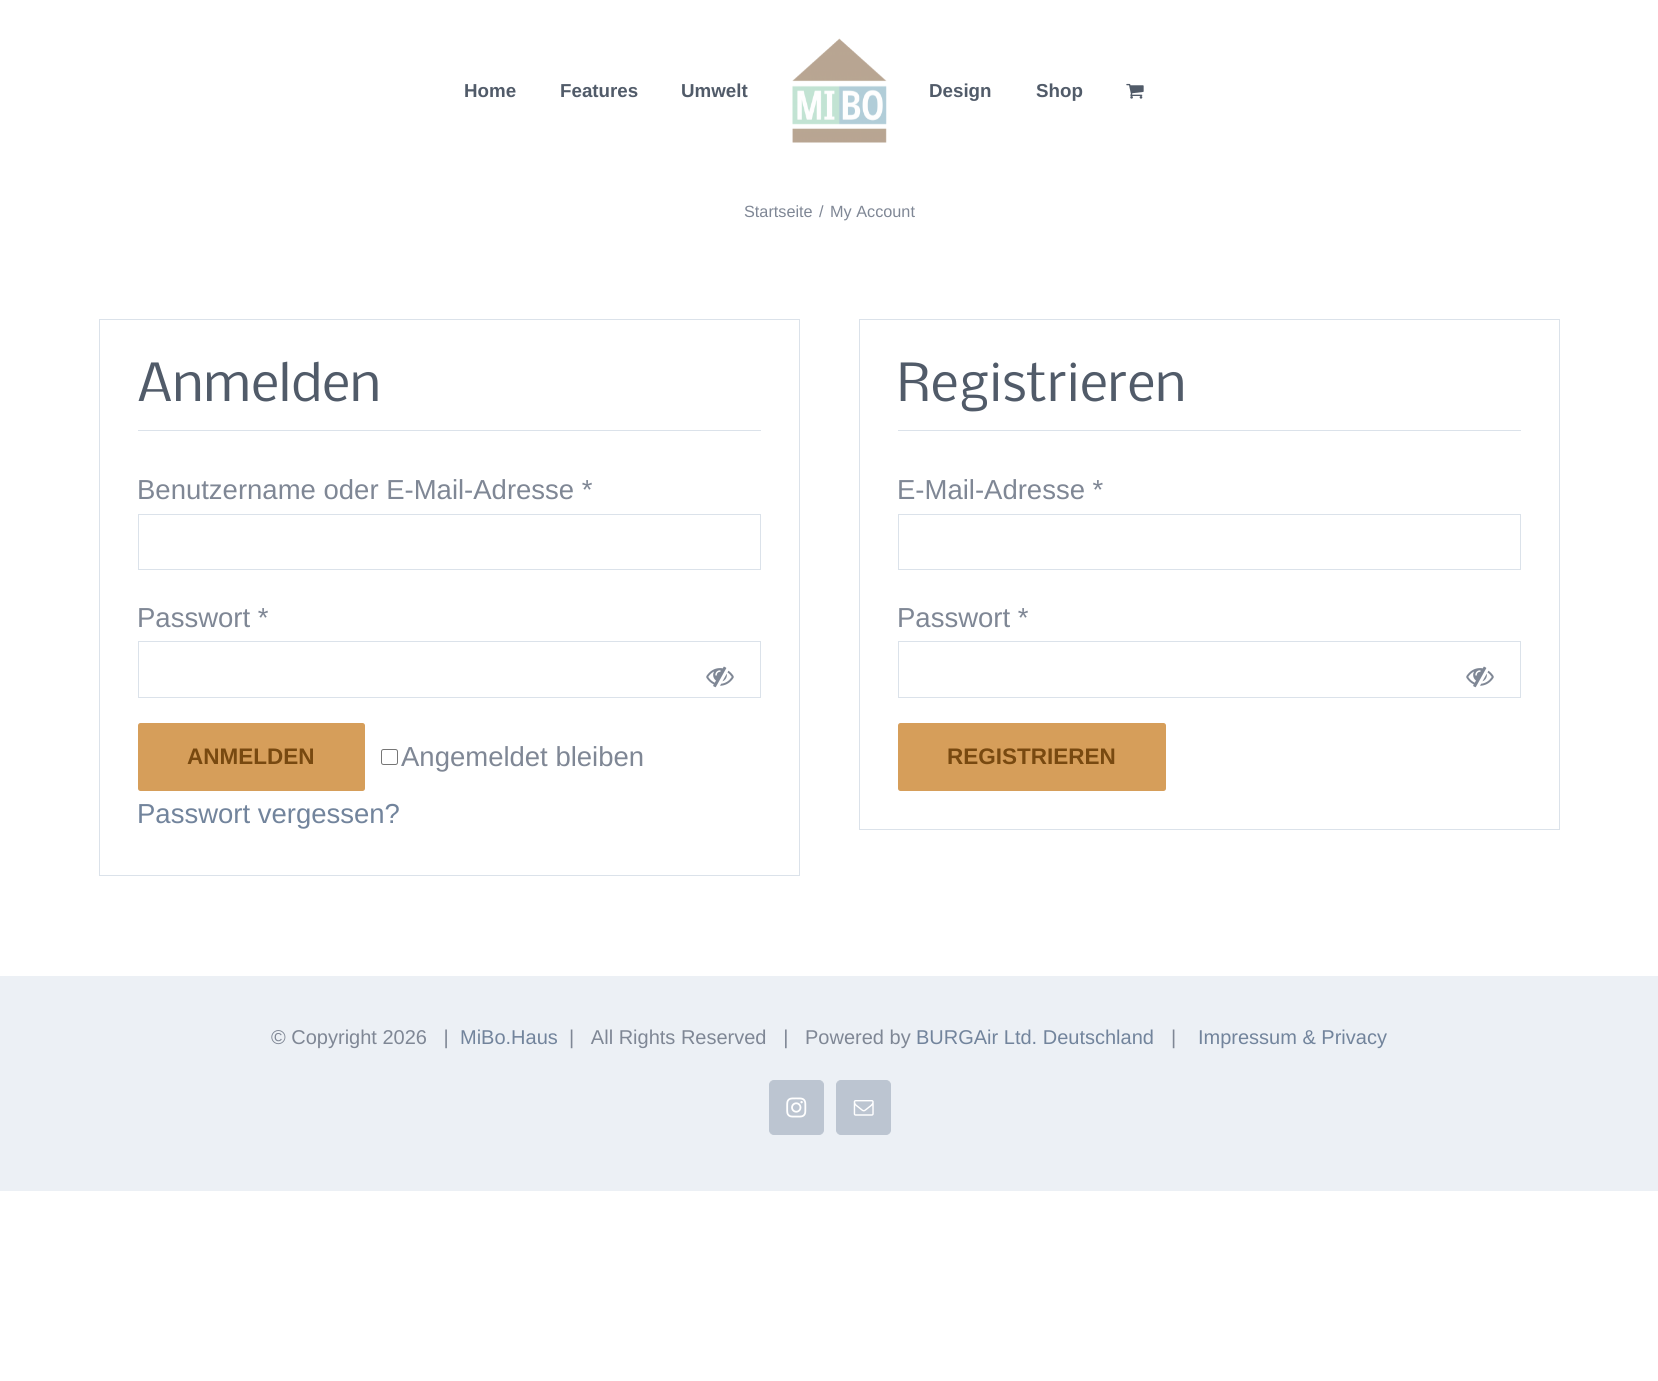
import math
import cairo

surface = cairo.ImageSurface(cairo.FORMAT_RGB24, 1658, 1381)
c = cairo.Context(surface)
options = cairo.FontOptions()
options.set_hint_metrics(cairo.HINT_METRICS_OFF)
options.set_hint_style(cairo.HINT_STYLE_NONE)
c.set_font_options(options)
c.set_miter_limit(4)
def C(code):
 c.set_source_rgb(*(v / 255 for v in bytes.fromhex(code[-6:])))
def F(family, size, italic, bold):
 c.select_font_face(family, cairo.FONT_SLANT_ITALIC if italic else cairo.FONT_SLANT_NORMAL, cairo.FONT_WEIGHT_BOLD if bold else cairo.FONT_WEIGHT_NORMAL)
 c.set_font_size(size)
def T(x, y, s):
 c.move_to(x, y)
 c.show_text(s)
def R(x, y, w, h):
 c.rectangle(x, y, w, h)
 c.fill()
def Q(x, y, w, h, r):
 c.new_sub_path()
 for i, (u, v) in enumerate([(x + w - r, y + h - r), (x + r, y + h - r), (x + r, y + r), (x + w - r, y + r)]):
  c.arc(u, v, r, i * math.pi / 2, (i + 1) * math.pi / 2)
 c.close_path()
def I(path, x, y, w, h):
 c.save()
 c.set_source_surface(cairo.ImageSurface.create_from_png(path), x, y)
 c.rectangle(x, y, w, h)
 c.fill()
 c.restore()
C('ffffff')
c.paint()
F('Liberation Sans',18.75,0,1)
C('515b69')
T(464,97,'Home')
T(560,97,'Features')
T(681,97,'Umwelt')
I('1.png',792,38,95,105)
T(929,97,'Design')
T(1036,97,'Shop')
I('2.png',1126,83,18,16)
F('Liberation Sans',16.25,0,0)
C('7f8795')
T(744,217,'Startseite')
T(819,217,'/')
T(830,217,'My Account')
c.rectangle(99.5,319.5,700,556)
C('dbe2ea')
c.set_line_width(1)
c.stroke()
R(138,430,623,1)
F('Nobile',50,0,0)
C('515b69')
T(137,401,'Anmelden')
F('Liberation Sans',27.5,0,0)
C('7f8795')
T(137,499,'Benutzername oder E-Mail-Adresse *')
c.rectangle(138.5,514.5,622,55)
C('dbe2ea')
c.stroke()
C('7f8795')
T(137,627,'Passwort *')
c.rectangle(138.5,641.5,622,56)
C('dbe2ea')
c.stroke()
I('3.png',706,666,28,22)
C('d69e5a')
Q(138,723,227,68,2.5)
c.fill()
F('Liberation Sans',22.5,0,1)
C('784910')
T(187,764,'ANMELDEN')
Q(381.5,749.5,16,15,2)
C('767676')
c.stroke()
F('Liberation Sans',27.5,0,0)
C('7f8795')
T(401,766,'Angemeldet bleiben')
C('72849c')
T(137,823,'Passwort vergessen?')
c.rectangle(859.5,319.5,700,510)
C('dbe2ea')
c.stroke()
R(898,430,623,1)
F('Nobile',50,0,0)
C('515b69')
T(897,401,'Registrieren')
F('Liberation Sans',27.5,0,0)
C('7f8795')
T(897,499,'E-Mail-Adresse *')
c.rectangle(898.5,514.5,622,55)
C('dbe2ea')
c.stroke()
C('7f8795')
T(897,627,'Passwort *')
c.rectangle(898.5,641.5,622,56)
C('dbe2ea')
c.stroke()
I('3.png',1466,666,28,22)
C('d69e5a')
Q(898,723,268,68,2.5)
c.fill()
F('Liberation Sans',22.5,0,1)
C('784910')
T(947,764,'REGISTRIEREN')
C('ecf0f5')
R(0,976,1658,215)
F('Liberation Sans',20,0,0)
C('7f8795')
T(271,1044,'© Copyright 2026   |')
C('72849c')
T(460,1044,'MiBo.Haus')
C('7f8795')
T(569,1044,'|   All Rights Reserved   |   Powered by')
C('72849c')
T(916,1044,'BURGAir Ltd. Deutschland')
C('7f8795')
T(1171,1044,'|')
C('72849c')
T(1198,1044,'Impressum & Privacy')
C('bcc5d1')
Q(769.5,1080.5,54,54,4.5)
c.fill_preserve()
c.stroke()
I('4.png',786,1097,21,21)
Q(836.5,1080.5,54,54,4.5)
c.fill_preserve()
c.stroke()
I('5.png',853,1100,21,16)
surface.write_to_png('o.png')
